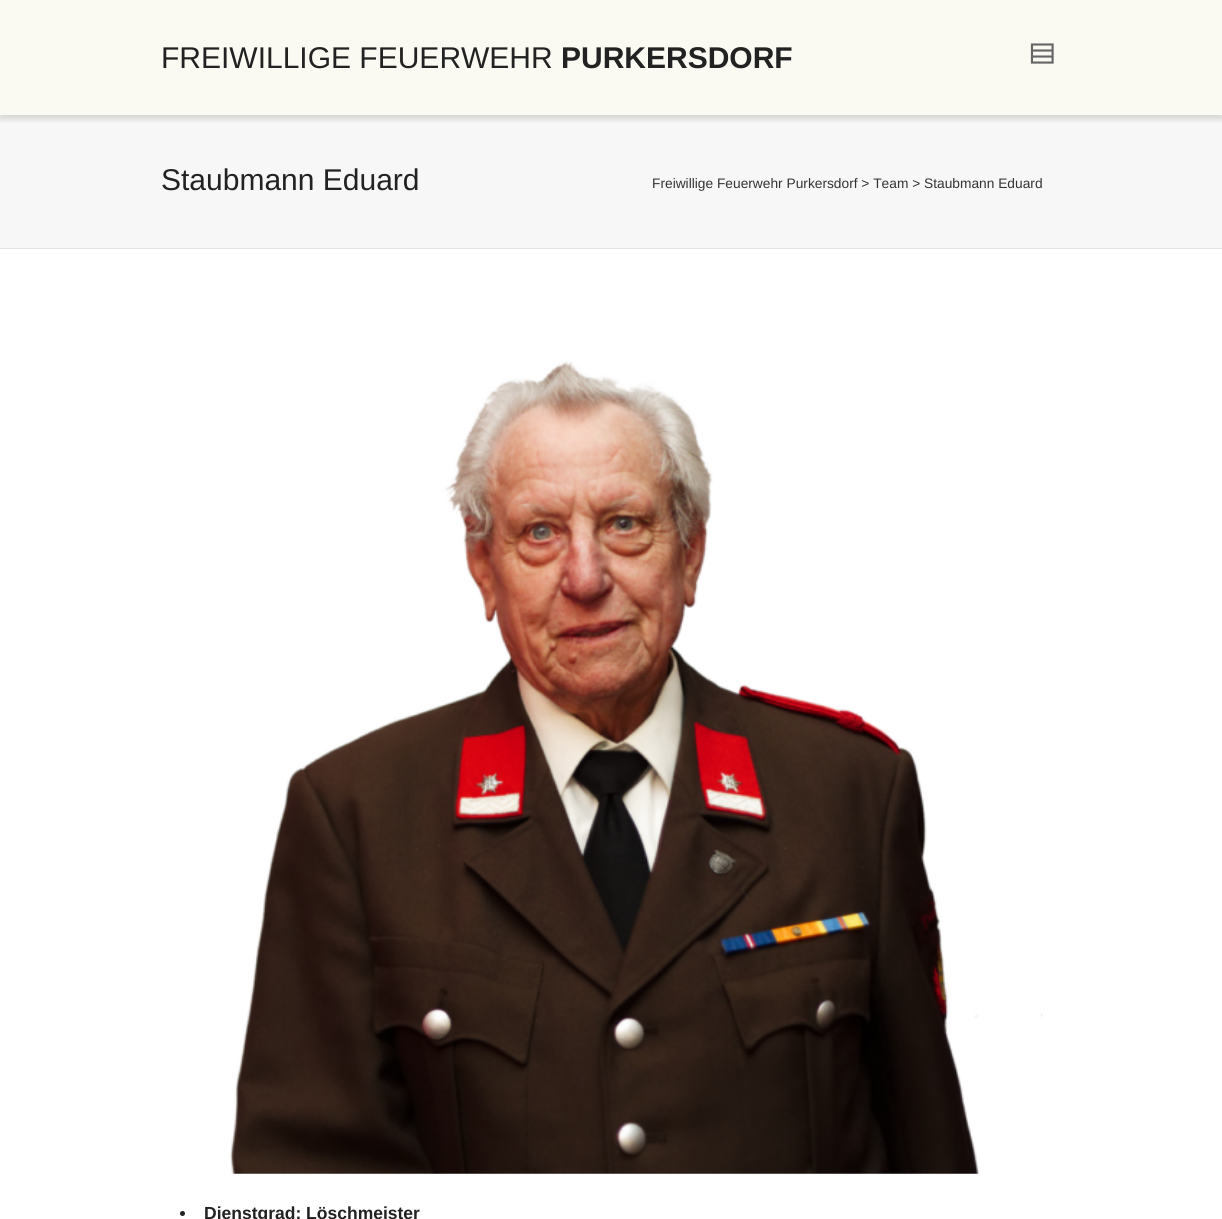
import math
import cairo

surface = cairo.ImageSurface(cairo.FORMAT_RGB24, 1222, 1219)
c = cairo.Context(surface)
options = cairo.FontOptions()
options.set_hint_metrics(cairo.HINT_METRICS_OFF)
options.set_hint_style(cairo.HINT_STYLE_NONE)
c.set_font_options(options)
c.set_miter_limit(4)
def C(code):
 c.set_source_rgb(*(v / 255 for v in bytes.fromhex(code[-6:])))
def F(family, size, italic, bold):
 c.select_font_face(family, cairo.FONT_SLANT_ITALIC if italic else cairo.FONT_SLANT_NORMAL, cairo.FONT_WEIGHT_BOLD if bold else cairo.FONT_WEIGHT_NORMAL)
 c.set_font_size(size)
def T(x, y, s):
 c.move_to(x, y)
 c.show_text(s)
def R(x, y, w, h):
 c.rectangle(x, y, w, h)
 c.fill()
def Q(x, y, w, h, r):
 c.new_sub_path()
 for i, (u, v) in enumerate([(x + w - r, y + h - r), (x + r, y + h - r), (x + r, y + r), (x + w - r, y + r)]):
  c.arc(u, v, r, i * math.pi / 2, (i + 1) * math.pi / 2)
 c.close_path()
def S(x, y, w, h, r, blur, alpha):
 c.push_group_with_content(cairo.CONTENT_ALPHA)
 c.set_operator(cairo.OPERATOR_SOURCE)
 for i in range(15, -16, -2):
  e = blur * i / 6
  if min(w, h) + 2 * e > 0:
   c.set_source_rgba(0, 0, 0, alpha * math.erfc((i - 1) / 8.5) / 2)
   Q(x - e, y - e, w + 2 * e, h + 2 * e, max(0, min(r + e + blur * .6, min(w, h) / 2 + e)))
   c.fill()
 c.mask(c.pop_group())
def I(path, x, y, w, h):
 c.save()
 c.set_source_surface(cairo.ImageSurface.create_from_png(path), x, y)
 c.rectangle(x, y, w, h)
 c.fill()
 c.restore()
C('ffffff')
c.paint()
C('f7f7f7')
R(0,115,1222,133)
C('000000')
S(0,4,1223,115,0,3,.1)
S(0,4,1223,115,0,3,.05)
C('faf9f2')
R(0,0,1222,115)
F('Liberation Sans',30,0,0)
C('222222')
T(161,68,'FREIWILLIGE FEUERWEHR')
F('Liberation Sans',30,0,1)
T(561,68,'PURKERSDORF')
I('1.png',1030,43,24,21)
C('e4e4e4')
R(0,248,1222,1)
F('Liberation Sans',30,0,0)
C('222222')
T(161,190,'Staubmann Eduard')
F('Liberation Sans',13.75,0,0)
C('333333')
T(652,188,'Freiwillige Feuerwehr Purkersdorf > Team > Staubmann Eduard')
I('2.png',230,361,813,813)
C('222222')
c.arc(182.5,1213.5,2.5,0,2 * math.pi)
c.fill()
F('Liberation Sans',17.5,0,1)
T(204,1219,'Dienstgrad: Löschmeister')
surface.write_to_png('o.png')
